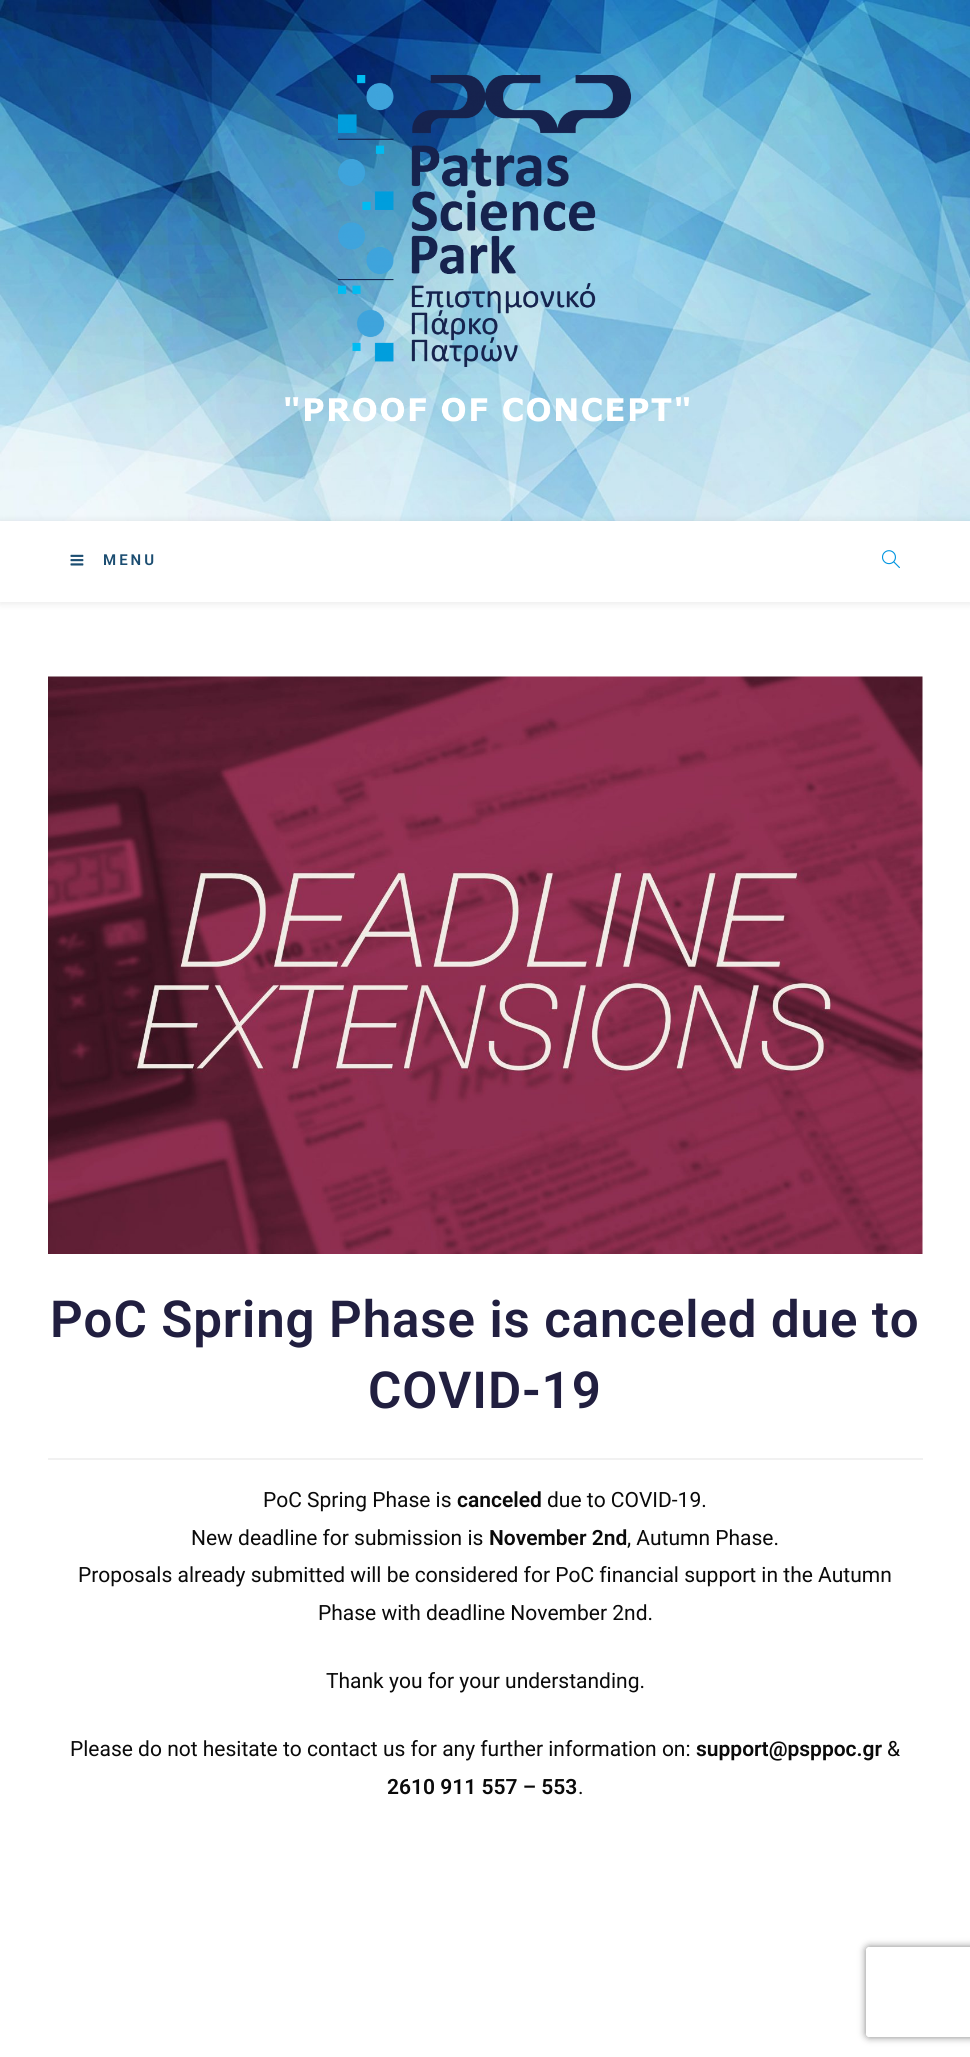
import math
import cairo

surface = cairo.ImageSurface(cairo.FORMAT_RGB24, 970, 2057)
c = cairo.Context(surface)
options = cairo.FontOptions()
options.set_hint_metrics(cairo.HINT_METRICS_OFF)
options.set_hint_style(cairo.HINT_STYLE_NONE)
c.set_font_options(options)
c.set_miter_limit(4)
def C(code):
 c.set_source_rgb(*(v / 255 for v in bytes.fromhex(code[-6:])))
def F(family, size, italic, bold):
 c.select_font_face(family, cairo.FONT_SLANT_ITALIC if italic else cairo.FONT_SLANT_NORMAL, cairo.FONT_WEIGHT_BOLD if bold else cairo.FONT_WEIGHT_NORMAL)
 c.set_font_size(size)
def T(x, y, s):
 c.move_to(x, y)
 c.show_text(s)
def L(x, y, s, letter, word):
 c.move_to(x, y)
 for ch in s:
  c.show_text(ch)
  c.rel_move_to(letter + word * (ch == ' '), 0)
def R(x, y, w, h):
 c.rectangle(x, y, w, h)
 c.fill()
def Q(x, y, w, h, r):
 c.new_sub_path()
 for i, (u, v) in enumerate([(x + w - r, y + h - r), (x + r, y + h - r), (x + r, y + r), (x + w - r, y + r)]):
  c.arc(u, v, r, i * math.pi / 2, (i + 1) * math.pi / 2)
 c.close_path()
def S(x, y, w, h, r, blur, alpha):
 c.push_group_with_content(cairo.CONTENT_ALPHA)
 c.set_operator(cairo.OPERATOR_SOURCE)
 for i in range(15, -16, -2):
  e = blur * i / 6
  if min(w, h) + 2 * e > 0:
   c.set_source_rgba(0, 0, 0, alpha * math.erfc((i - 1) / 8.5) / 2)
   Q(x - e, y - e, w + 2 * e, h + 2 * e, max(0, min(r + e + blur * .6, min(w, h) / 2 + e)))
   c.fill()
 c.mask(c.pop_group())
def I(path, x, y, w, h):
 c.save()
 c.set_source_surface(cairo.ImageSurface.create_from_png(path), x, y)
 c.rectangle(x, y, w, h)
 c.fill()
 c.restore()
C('ffffff')
c.paint()
I('1.png',0,0,970,521)
I('2.png',285,75,404,347)
C('000000')
S(0,522,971,81,0,4,.1)
C('ffffff')
R(0,521,970,81)
I('3.png',70,554,14,12)
F('Roboto SemiBold',15,0,0)
C('1b4d71')
L(103,565,'MENU',3,0)
I('4.png',882,550,18,19)
I('5.png',48,676,875,578)
C('f1f1f1')
R(48,1458,875,2)
F('Roboto SemiBold',51,0,0)
C('211f40')
L(50,1337,'PoC Spring Phase is canceled due to',.9,0)
L(368,1408,'COVID-19',.9,0)
F('Roboto',21,0,0)
C('0a0a0a')
T(263,1507,'PoC Spring Phase is')
F('Roboto SemiBold',21,0,0)
T(457,1507,'canceled')
F('Roboto',21,0,0)
T(547,1507,'due to COVID-19.')
T(191,1545,'New deadline for submission is')
F('Roboto SemiBold',21,0,0)
T(489,1545,'November 2nd')
F('Roboto',21,0,0)
T(627,1545,', Autumn Phase.')
T(78,1582,'Proposals already submitted will be considered for PoC financial support in the Autumn')
T(318,1620,'Phase with deadline November 2nd.')
T(326,1688,'Thank you for your understanding.')
T(70,1756,'Please do not hesitate to contact us for any further information on:')
F('Roboto SemiBold',21,0,0)
T(696,1756,'support@psppoc.gr')
F('Roboto',21,0,0)
T(887,1756,'&')
F('Roboto SemiBold',21,0,0)
T(387,1794,'2610 911 557 – 553')
F('Roboto',21,0,0)
T(578,1794,'.')
c.save()
c.set_fill_rule(cairo.FILL_RULE_EVEN_ODD)
c.new_path()
c.move_to(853,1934)
c.line_to(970,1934)
c.line_to(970,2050)
c.line_to(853,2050)
c.close_path()
c.move_to(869,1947)
c.line_to(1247,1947)
c.curve_to(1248.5,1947,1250,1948.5,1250,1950)
c.line_to(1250,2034)
c.curve_to(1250,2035.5,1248.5,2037,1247,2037)
c.line_to(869,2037)
c.curve_to(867.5,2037,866,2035.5,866,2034)
c.line_to(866,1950)
c.curve_to(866,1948.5,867.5,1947,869,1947)
c.close_path()
c.clip()
C('808080')
S(866,1947,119,90,3,4,1)
c.restore()
surface.write_to_png('o.png')
